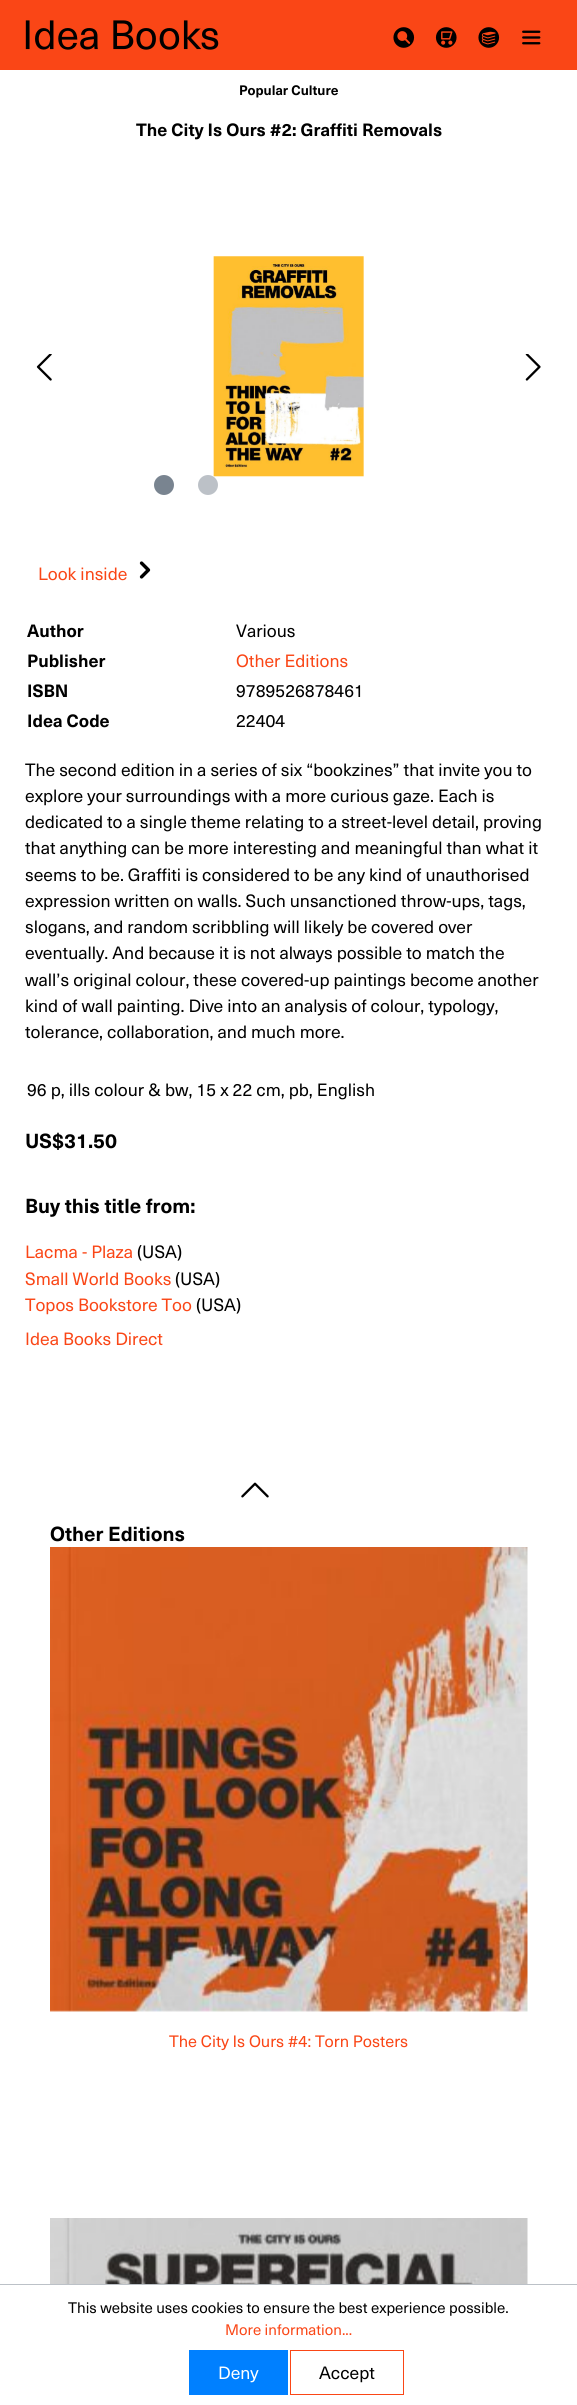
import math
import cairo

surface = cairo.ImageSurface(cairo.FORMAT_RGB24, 577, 2405)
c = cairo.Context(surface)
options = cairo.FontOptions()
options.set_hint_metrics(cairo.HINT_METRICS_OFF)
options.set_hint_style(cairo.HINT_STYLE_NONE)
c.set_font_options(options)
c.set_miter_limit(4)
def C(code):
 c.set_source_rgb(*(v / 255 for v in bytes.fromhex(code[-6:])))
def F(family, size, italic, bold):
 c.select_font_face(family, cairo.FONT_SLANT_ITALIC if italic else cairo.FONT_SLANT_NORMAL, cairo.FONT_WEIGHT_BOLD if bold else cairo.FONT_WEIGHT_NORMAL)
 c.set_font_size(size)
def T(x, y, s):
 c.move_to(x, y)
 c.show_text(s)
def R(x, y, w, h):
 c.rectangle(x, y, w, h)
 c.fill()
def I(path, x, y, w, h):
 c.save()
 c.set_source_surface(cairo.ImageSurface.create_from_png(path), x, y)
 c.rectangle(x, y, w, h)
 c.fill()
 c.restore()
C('ffffff')
c.paint()
C('fa4616')
R(0,0,577,70)
I('1.png',25,20,194,30)
I('2.png',393,27,22,21)
I('3.png',435,27,22,21)
I('4.png',478,27,22,21)
I('5.png',522,30,19,15)
F('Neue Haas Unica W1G',13.5,0,1)
C('000000')
T(239,95,'Popular Culture')
F('Neue Haas Unica W1G',17.5,0,1)
T(136,136,'The City Is Ours #2: Graffiti Removals')
I('6.png',213,256,151,221)
I('7.png',36,354,16,27)
I('8.png',525,354,16,27)
C('798490')
c.arc(164,485,10,0,2 * math.pi)
c.fill()
C('bcc1c7')
c.arc(208,485,10,0,2 * math.pi)
c.fill()
F('Neue Haas Unica W1G',17.5,0,0)
C('fa4616')
T(38,580,'Look inside')
I('9.png',139,561,12,18)
F('Neue Haas Unica W1G',17.5,0,1)
C('000000')
T(27,637,'Author')
F('Neue Haas Unica W1G',17.5,0,0)
T(236,637,'Various')
F('Neue Haas Unica W1G',17.5,0,1)
T(27,667,'Publisher')
F('Neue Haas Unica W1G',17.5,0,0)
C('fa4616')
T(236,667,'Other Editions')
F('Neue Haas Unica W1G',17.5,0,1)
C('000000')
T(27,697,'ISBN')
F('Neue Haas Unica W1G',17.5,0,0)
T(236,697,'9789526878461')
F('Neue Haas Unica W1G',17.5,0,1)
T(27,727,'Idea Code')
F('Neue Haas Unica W1G',17.5,0,0)
T(236,727,'22404')
T(25,776,'The second edition in a series of six “bookzines” that invite you to')
T(25,802,'explore your surroundings with a more curious gaze. Each is')
T(25,828,'dedicated to a single theme relating to a street-level detail, proving')
T(25,854,'that anything can be more interesting and meaningful than what it')
T(25,881,'seems to be. Graffiti is considered to be any kind of unauthorised')
T(25,907,'expression written on walls. Such unsanctioned throw-ups, tags,')
T(25,933,'slogans, and random scribbling will likely be covered over')
T(25,959,'eventually. And because it is not always possible to match the')
T(25,986,'wall’s original colour, these covered-up paintings become another')
T(25,1012,'kind of wall painting. Dive into an analysis of colour, typology,')
T(25,1038,'tolerance, collaboration, and much more.')
T(27,1096,'96 p, ills colour & bw, 15 x 22 cm, pb, English')
F('Neue Haas Unica W1G',20,0,1)
T(25,1148,'US$31.50')
T(25,1213,'Buy this title from:')
F('Neue Haas Unica W1G',17.5,0,0)
C('fa4616')
T(25,1258,'Lacma - Plaza')
C('000000')
T(137,1258,'(USA)')
C('fa4616')
T(25,1285,'Small World Books')
C('000000')
T(175,1285,'(USA)')
C('fa4616')
T(25,1311,'Topos Bookstore Too')
C('000000')
T(196,1311,'(USA)')
C('fa4616')
T(25,1345,'Idea Books Direct')
I('10.png',241,1482,28,16)
F('Neue Haas Unica W1G',20,0,1)
C('000000')
T(50,1541,'Other Editions')
I('11.png',50,1547,478,465)
F('Neue Haas Unica W1G',16.25,0,0)
C('fa4616')
T(169,2047,'The City Is Ours #4: Torn Posters')
I('12.png',50,2218,478,66)
C('bcc1c7')
R(0,2284,577,1)
F('Neue Haas Unica W1G',15,0,0)
C('000000')
T(68,2313,'This website uses cookies to ensure the best experience possible.')
C('fa4616')
T(225,2335,'More information...')
C('0080ff')
R(189,2350,99,45)
F('Neue Haas Unica W1G',17.5,0,0)
C('ffffff')
T(218,2379,'Deny')
c.rectangle(290.5,2350.5,113,44)
C('fa4616')
c.set_line_width(1)
c.stroke()
C('000000')
T(319,2379,'Accept')
surface.write_to_png('o.png')
